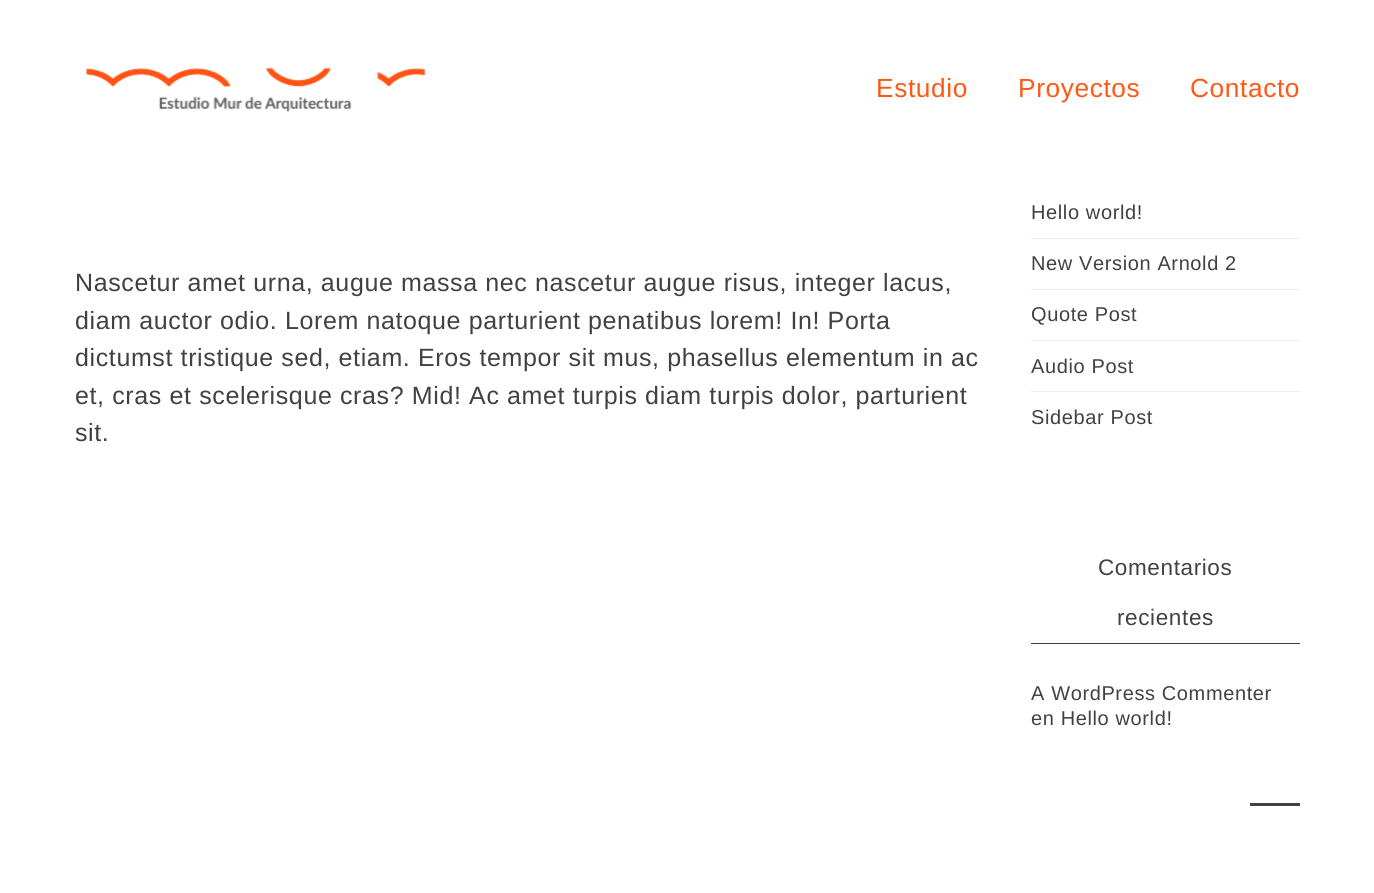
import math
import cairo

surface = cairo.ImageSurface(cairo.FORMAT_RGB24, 1374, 893)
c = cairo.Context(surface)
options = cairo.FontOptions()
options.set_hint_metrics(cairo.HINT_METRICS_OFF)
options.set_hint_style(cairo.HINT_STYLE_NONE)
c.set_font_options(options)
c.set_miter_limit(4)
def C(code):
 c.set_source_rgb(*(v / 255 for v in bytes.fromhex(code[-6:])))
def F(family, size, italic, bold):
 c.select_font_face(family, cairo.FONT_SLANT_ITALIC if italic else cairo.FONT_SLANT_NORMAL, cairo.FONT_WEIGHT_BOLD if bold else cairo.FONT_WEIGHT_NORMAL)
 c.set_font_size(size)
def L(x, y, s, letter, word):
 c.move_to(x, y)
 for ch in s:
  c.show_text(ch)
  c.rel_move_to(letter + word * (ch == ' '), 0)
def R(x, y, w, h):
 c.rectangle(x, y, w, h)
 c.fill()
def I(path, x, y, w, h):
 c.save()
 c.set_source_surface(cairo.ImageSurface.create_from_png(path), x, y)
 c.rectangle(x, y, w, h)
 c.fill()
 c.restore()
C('ffffff')
c.paint()
I('1.png',86,68,340,44)
F('Liberation Sans',26.25,0,0)
C('ff5815')
L(876,97,'Estudio',.62,0)
L(1018,97,'Proyectos',.62,0)
L(1190,97,'Contacto',.62,0)
F('Liberation Sans',25,0,0)
C('414145')
L(75,291,'Nascetur amet urna, augue massa nec nascetur augue risus, integer lacus,',.62,0)
L(75,329,'diam auctor odio. Lorem natoque parturient penatibus lorem! In! Porta',.62,0)
L(75,366,'dictumst tristique sed, etiam. Eros tempor sit mus, phasellus elementum in ac',.62,0)
L(75,404,'et, cras et scelerisque cras? Mid! Ac amet turpis diam turpis dolor, parturient',.62,0)
L(75,441,'sit.',.62,0)
C('eeeeee')
R(1031,238,269,1)
F('Liberation Sans',20,0,0)
C('414145')
L(1031,219,'Hello world!',.62,0)
C('eeeeee')
R(1031,289,269,1)
C('414145')
L(1031,270,'New Version Arnold 2',.62,0)
C('eeeeee')
R(1031,340,269,1)
C('414145')
L(1031,321,'Quote Post',.62,0)
C('eeeeee')
R(1031,391,269,1)
C('414145')
L(1031,373,'Audio Post',.62,0)
L(1031,424,'Sidebar Post',.62,0)
R(1031,643,269,1)
F('Liberation Sans',22.5,0,0)
L(1098,575,'Comentarios',.62,0)
L(1117,625,'recientes',.62,0)
F('Liberation Sans',20,0,0)
L(1031,700,'A WordPress Commenter',.62,0)
L(1031,725,'en Hello world!',.62,0)
R(1250,803,50,3)
surface.write_to_png('o.png')
